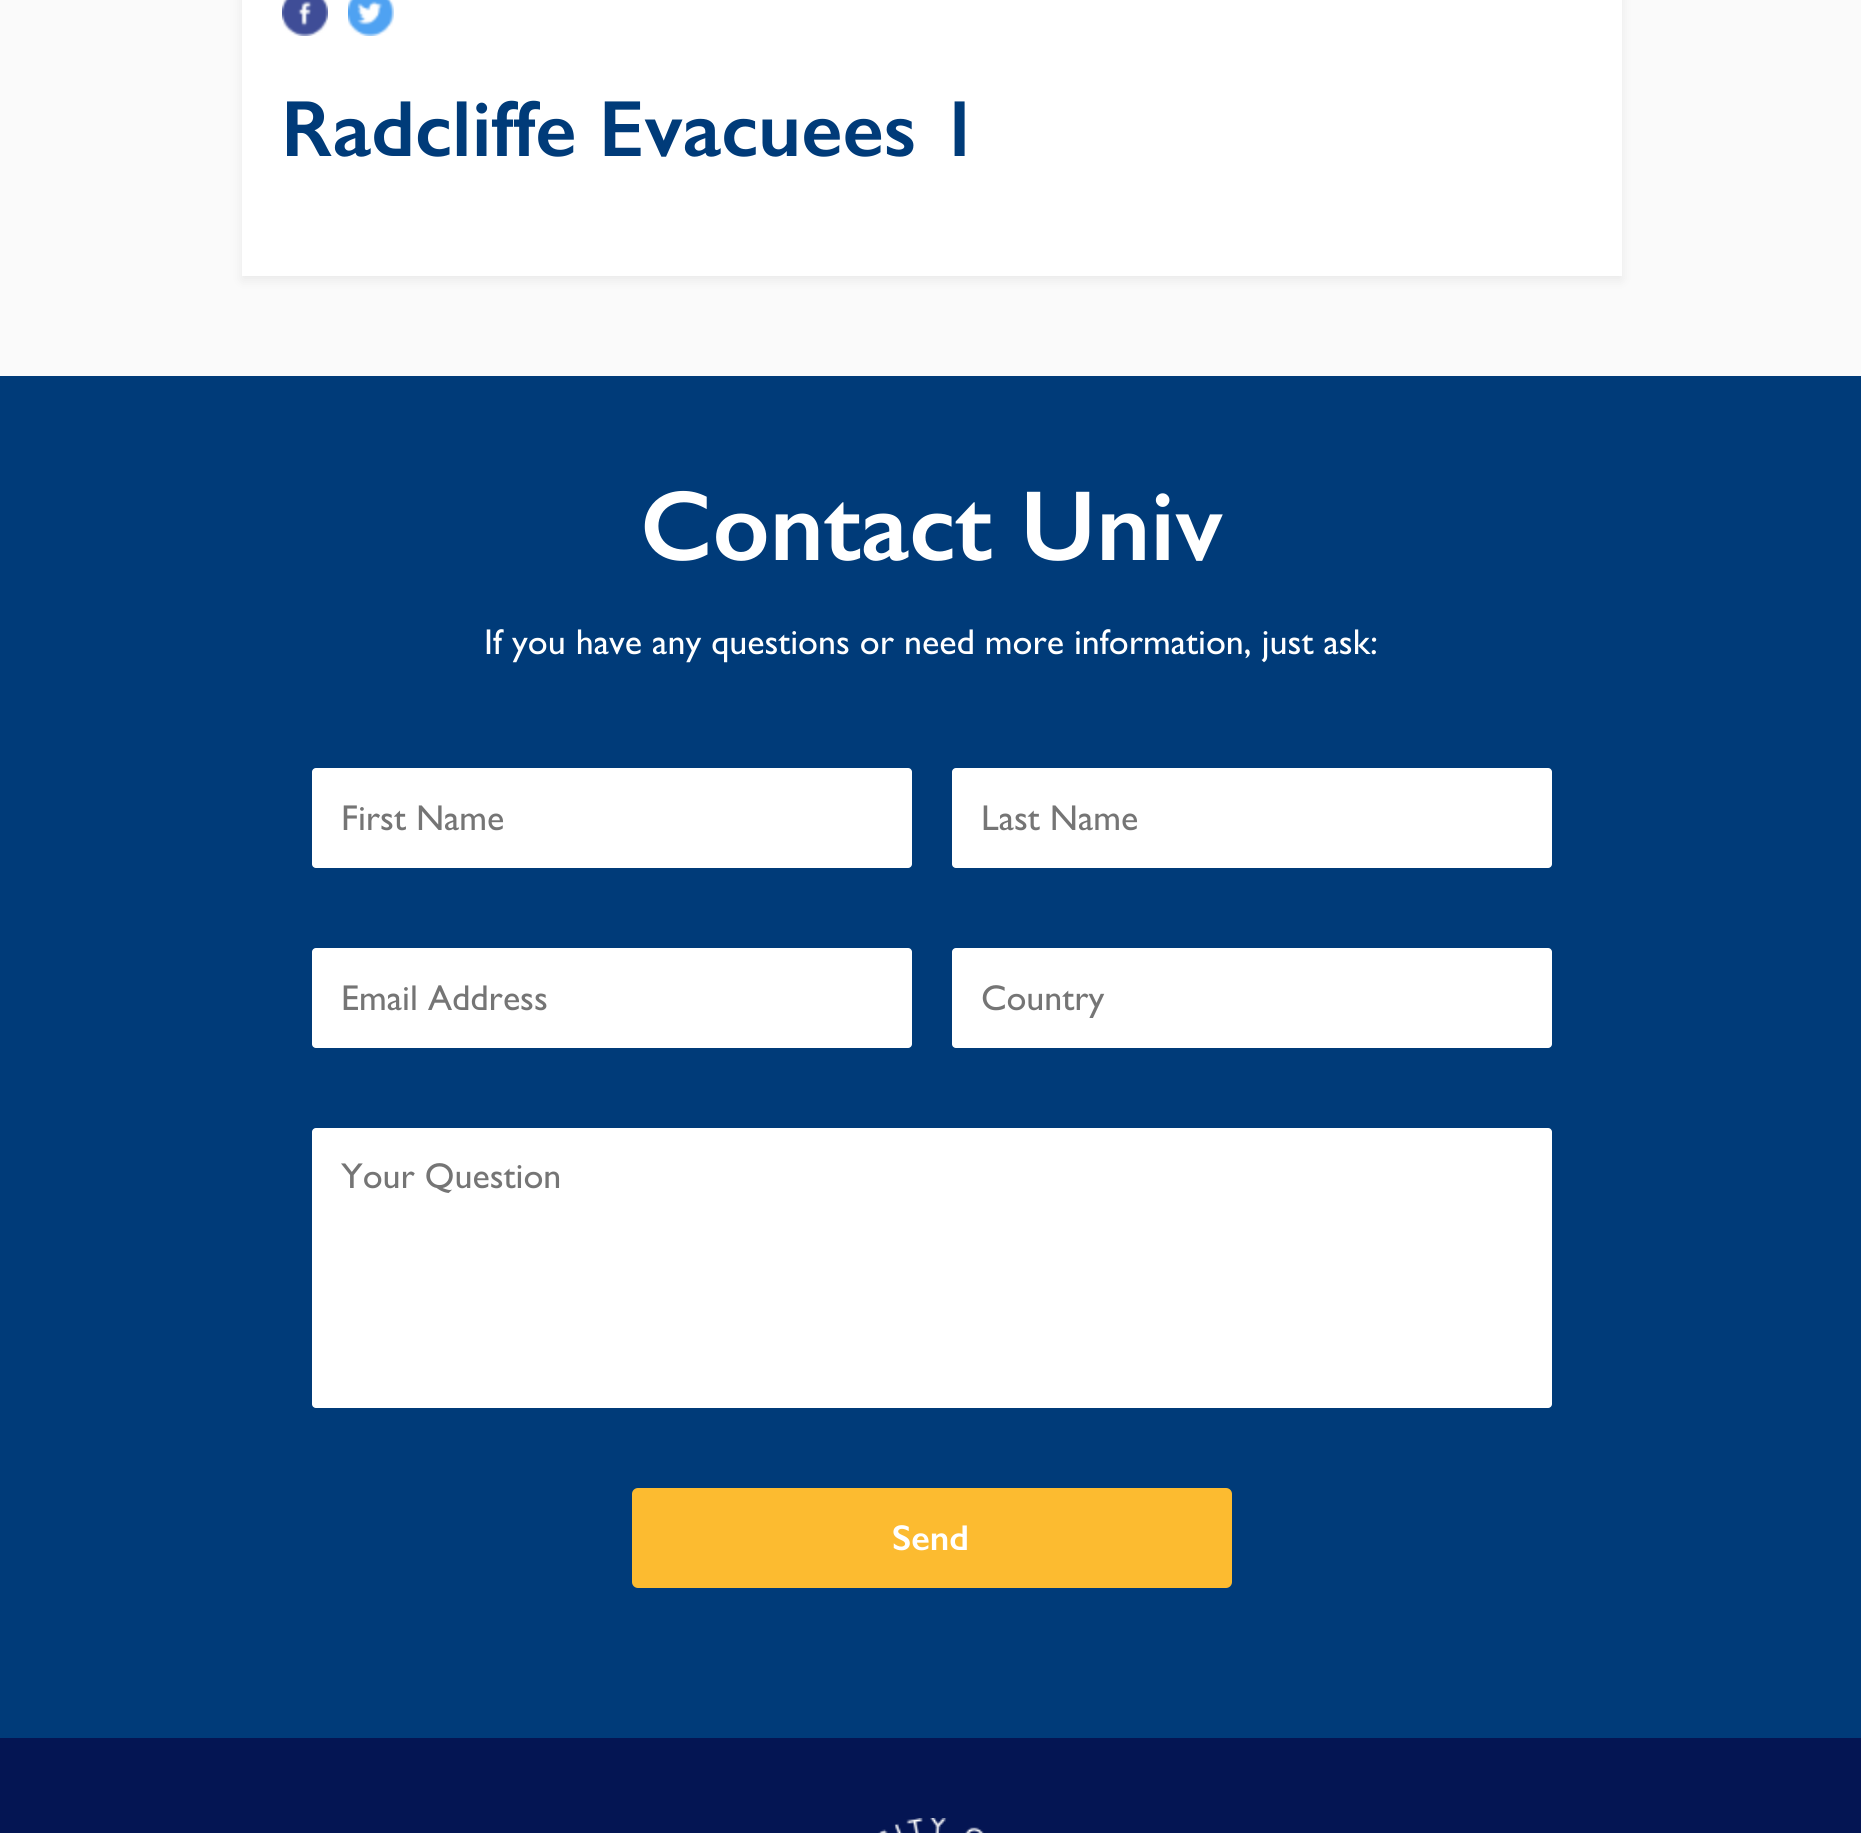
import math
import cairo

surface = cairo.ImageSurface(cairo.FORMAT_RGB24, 1861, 1833)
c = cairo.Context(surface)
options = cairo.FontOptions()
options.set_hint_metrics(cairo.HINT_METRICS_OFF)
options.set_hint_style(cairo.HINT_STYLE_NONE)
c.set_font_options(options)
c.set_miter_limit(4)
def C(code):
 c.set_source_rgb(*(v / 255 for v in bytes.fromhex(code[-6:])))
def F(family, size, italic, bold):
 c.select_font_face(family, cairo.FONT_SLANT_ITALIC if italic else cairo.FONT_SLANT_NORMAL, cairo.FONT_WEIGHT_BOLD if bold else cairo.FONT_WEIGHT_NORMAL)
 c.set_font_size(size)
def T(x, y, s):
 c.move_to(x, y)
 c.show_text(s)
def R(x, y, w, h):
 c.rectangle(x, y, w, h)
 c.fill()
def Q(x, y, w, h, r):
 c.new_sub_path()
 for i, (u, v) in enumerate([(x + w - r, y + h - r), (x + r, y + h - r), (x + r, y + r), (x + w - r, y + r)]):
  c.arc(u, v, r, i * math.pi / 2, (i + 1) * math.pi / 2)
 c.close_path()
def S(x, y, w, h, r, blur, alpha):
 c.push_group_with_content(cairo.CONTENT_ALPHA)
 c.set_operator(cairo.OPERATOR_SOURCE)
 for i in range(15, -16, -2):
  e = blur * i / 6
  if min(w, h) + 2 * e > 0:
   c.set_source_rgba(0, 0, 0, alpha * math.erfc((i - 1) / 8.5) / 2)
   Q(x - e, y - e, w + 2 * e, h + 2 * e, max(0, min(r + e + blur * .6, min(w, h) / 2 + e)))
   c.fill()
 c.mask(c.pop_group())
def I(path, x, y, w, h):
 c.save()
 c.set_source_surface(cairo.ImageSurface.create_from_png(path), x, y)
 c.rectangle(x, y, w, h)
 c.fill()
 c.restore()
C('fafafa')
c.paint()
C('000000')
S(242,-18,1380,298,0,6,.07)
C('ffffff')
R(242,0,1380,276)
I('1.png',282,0,46,36)
I('2.png',348,0,46,36)
F('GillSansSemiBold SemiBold',80,0,0)
C('003b79')
T(281,156,'Radcliffe Evacuees 1')
R(0,376,1861,1362)
F('GillSansSemiBold SemiBold',100,0,0)
C('ffffff')
T(640,560,'Contact Univ')
F('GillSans',36,0,0)
T(484,654,'If you have any questions or need more information, just ask:')
Q(312,768,600,100,4)
c.fill()
C('757575')
T(341,830,'First Name')
C('ffffff')
Q(952,768,600,100,4)
c.fill()
C('757575')
T(981,830,'Last Name')
C('ffffff')
Q(312,948,600,100,4)
c.fill()
C('757575')
T(341,1010,'Email Address')
C('ffffff')
Q(952,948,600,100,4)
c.fill()
c.save()
c.rectangle(982,976,540,42)
c.clip()
C('757575')
T(981,1010,'Country')
c.restore()
Q(312,1128,1240,280,4)
c.fill()
C('757575')
T(341,1188,'Your Question')
C('fcbb30')
Q(632,1488,600,100,6)
c.fill()
F('GillSansSemiBold SemiBold',36,0,0)
C('ffffff')
T(892,1550,'Send')
C('041553')
R(0,1738,1861,95)
I('3.png',878,1818,106,15)
surface.write_to_png('o.png')
